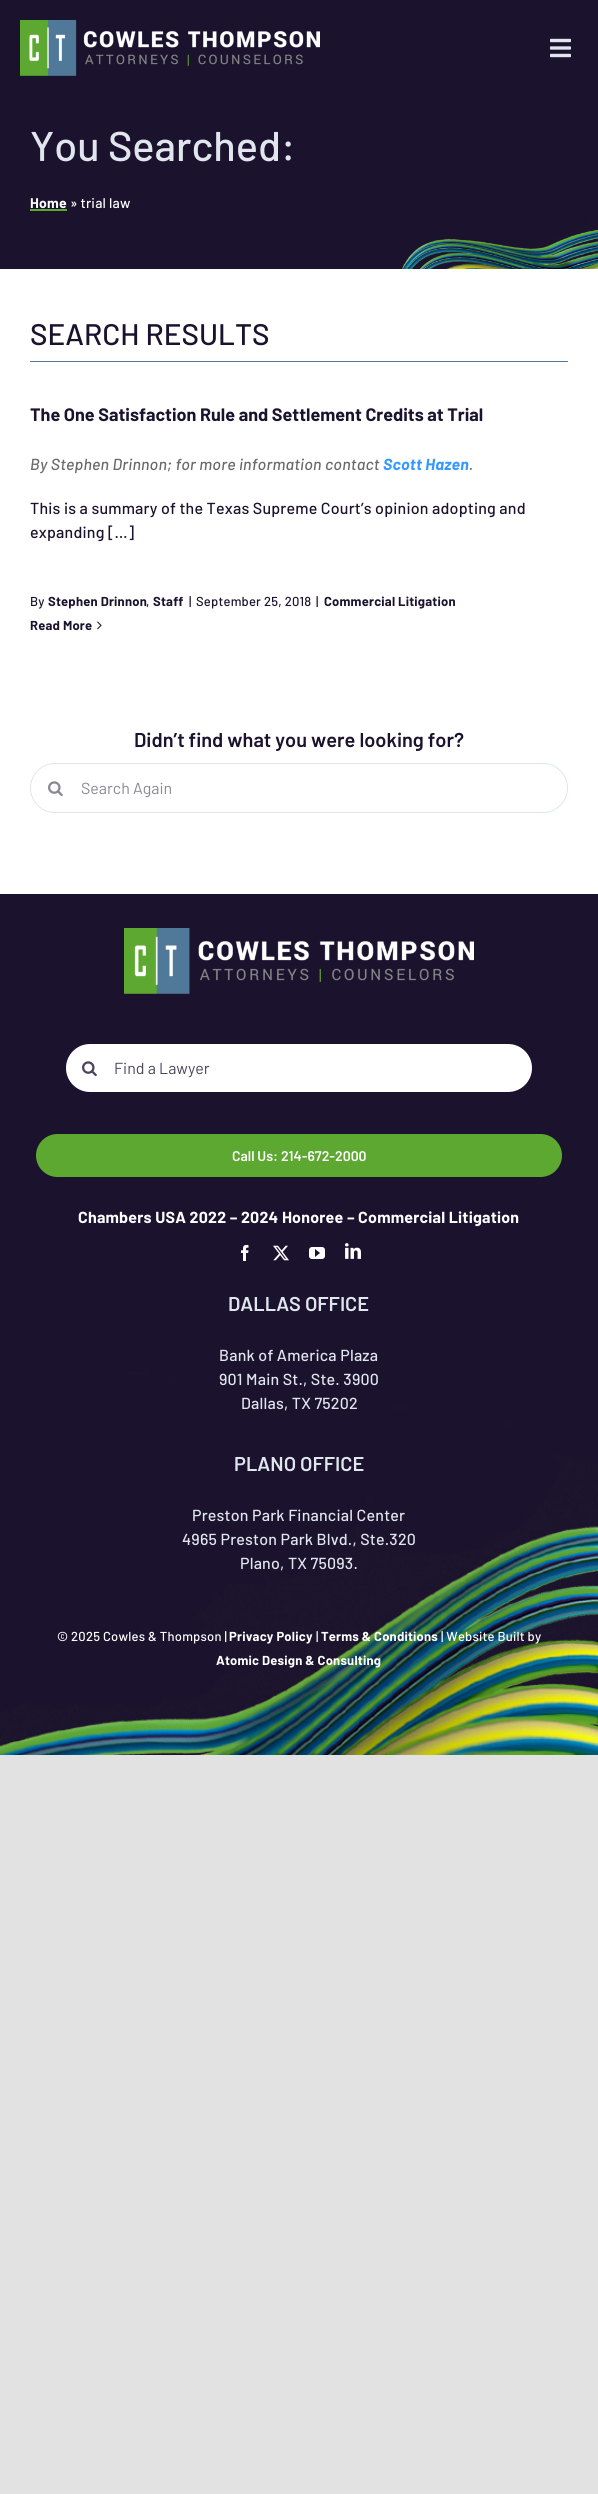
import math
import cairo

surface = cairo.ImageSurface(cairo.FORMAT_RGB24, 598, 2494)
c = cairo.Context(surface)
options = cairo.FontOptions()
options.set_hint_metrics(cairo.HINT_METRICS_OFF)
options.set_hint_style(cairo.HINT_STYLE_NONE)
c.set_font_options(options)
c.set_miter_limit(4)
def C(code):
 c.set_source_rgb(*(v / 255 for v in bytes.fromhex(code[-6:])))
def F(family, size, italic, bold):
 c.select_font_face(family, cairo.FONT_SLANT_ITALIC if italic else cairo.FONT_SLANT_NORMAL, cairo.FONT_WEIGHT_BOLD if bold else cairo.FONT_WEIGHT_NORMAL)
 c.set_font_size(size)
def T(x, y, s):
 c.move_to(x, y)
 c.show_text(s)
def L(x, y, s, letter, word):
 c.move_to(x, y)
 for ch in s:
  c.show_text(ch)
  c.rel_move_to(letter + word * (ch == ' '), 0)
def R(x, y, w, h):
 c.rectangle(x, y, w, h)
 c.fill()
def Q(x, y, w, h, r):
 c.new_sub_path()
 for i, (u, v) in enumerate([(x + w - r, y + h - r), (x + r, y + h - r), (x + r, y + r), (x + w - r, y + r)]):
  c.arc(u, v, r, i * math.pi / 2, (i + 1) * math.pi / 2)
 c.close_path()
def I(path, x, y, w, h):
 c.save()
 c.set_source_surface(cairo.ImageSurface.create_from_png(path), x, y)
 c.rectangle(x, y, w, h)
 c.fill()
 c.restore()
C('e2e2e2')
c.paint()
C('ffffff')
R(0,269,598,625)
C('1b132d')
R(0,0,598,96)
I('1.png',20,20,300,56)
I('2.png',550,38,21,20)
I('3.png',0,96,598,173)
F('Barlow Medium',41.5,0,0)
C('e0e5ee')
T(30,161,'You Searched:')
F('Barlow',14,0,1)
C('ffffff')
L(30,208,'Home',.2,0)
C('5da831')
R(30,209,37,2)
F('Barlow Medium',14,0,0)
C('ffffff')
L(70,208,'» trial law',.2,0)
F('Barlow Medium',29.75,0,0)
C('1b132d')
T(30,345,'SEARCH RESULTS')
C('507999')
R(30,361,538,1)
F('Barlow',18,0,1)
C('1b132d')
T(30,421,'The One Satisfaction Rule and Settlement Credits at Trial')
F('Barlow Medium',16,1,0)
C('696969')
L(30,470,'By Stephen Drinnon; for more information contact',.2,0)
F('Barlow',16,1,1)
C('3399ff')
L(383,470,'Scott Hazen',.2,0)
F('Barlow Medium',16,1,0)
C('696969')
L(469,470,'.',.2,0)
F('Barlow Medium',16,0,0)
C('1b132d')
L(30,514,'This is a summary of the Texas Supreme Court’s opinion adopting and',.2,0)
L(30,538,'expanding […]',.2,0)
F('Barlow Medium',13,0,0)
L(30,606,'By',.2,0)
F('Barlow',13,0,1)
L(48,606,'Stephen Drinnon',.2,0)
F('Barlow Medium',13,0,0)
L(146,606,',',.2,0)
F('Barlow',13,0,1)
L(153,606,'Staff',.2,0)
F('Barlow Medium',13,0,0)
L(189,606,'|',.2,0)
L(196,606,'September 25, 2018',.2,0)
L(316,606,'|',.2,0)
F('Barlow',13,0,1)
L(324,606,'Commercial Litigation',.2,0)
L(30,630,'Read More',.2,0)
I('4.png',97,621,5,9)
F('Barlow SemiBold',20,0,0)
T(134,747,'Didn’t find what you were looking for?')
Q(30.5,763.5,537,49,24.5)
C('e0e5ee')
c.set_line_width(1)
c.stroke()
I('5.png',48,781,15,16)
F('Barlow',16,0,0)
C('8b8794')
T(81,794,'Search Again')
I('6.png',0,894,598,861)
I('7.png',124,928,350,66)
C('ffffff')
Q(66,1044,466,48,24)
c.fill()
I('8.png',82,1061,15,16)
C('4b4559')
T(114,1074,'Find a Lawyer')
C('5da831')
Q(36,1134,526,43,21.5)
c.fill()
F('Barlow SemiBold',14,0,0)
C('ffffff')
T(232,1161,'Call Us: 214-672-2000')
F('Barlow',16,0,1)
L(78,1223,'Chambers USA 2022 – 2024 Honoree – Commercial Litigation',.2,0)
I('9.png',241,1245,8,16)
I('10.png',273,1245,16,16)
I('11.png',309,1247,16,12)
I('12.png',345,1243,16,16)
F('Barlow SemiBold',20,0,0)
C('e0e5ee')
T(228,1311,'DALLAS OFFICE')
F('Barlow Medium',16,0,0)
L(219,1361,'Bank of America Plaza',.2,0)
L(219,1385,'901 Main St., Ste. 3900',.2,0)
L(241,1409,'Dallas, TX 75202',.2,0)
F('Barlow SemiBold',20,0,0)
T(234,1471,'PLANO OFFICE')
F('Barlow Medium',16,0,0)
L(192,1521,'Preston Park Financial Center',.2,0)
L(182,1545,'4965 Preston Park Blvd., Ste.320',.2,0)
L(240,1569,'Plano, TX 75093.',.2,0)
F('Barlow Medium',13,0,0)
C('ffffff')
L(57,1641,'© 2025 Cowles & Thompson |',.2,0)
F('Barlow',13,0,1)
L(229,1641,'Privacy Policy',.2,0)
F('Barlow Medium',13,0,0)
L(316,1641,'|',.2,0)
F('Barlow',13,0,1)
L(321,1641,'Terms & Conditions',.2,0)
F('Barlow Medium',13,0,0)
L(441,1641,'| Website Built by',.2,0)
F('Barlow',13,0,1)
L(216,1665,'Atomic Design & Consulting',.2,0)
surface.write_to_png('o.png')
